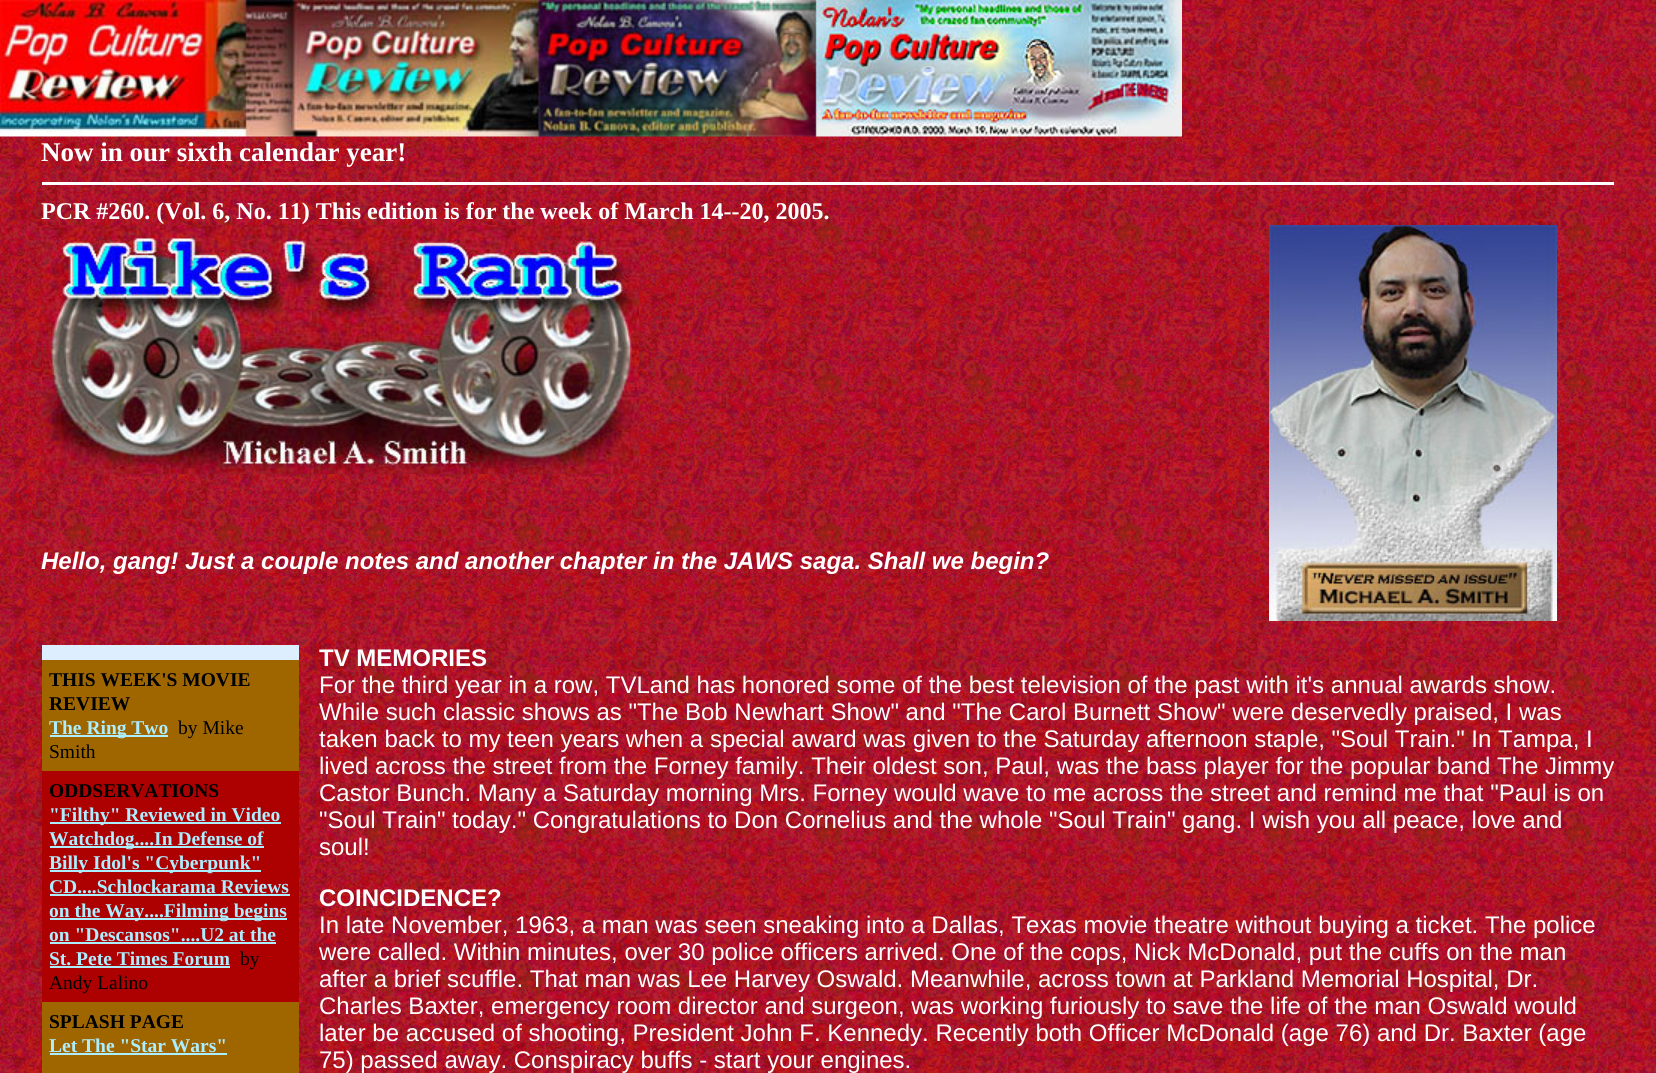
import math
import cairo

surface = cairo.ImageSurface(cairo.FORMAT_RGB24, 1656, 1073)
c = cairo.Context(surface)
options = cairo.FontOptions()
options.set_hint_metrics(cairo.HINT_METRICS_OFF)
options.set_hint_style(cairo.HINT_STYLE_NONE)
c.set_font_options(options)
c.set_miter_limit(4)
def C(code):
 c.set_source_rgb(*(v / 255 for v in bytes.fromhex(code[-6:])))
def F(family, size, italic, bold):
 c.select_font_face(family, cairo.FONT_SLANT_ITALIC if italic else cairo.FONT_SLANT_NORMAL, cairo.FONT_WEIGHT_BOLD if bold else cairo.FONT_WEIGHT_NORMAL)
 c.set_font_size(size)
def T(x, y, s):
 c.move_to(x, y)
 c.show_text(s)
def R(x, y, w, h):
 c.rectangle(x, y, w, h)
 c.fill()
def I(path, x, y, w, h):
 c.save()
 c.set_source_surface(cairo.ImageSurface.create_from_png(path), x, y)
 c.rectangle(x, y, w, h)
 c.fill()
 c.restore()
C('ffffff')
c.paint()
I('1.png',0,0,1656,1073)
I('2.png',0,0,1182,137)
F('Liberation Serif',27,0,1)
C('ffffff')
T(41,161,'Now in our sixth calendar year!')
R(42,182,1572,3)
F('Liberation Serif',24,0,1)
T(41,219,'PCR #260. (Vol. 6, No. 11) This edition is for the week of March 14--20, 2005.')
I('3.png',42,225,597,249)
I('4.png',1269,225,288,396)
F('Liberation Sans',24,1,1)
T(41,569,'Hello, gang! Just a couple notes and another chapter in the JAWS saga. Shall we begin?')
C('ddeeff')
R(42,645,257,15)
C('9f6600')
R(42,660,257,111)
F('Liberation Serif',19.5,0,1)
C('000000')
T(49,686,'THIS WEEK\'S MOVIE')
T(49,710,'REVIEW')
C('aceeff')
R(50,735,118,2)
T(49,734,'The Ring Two')
F('Liberation Serif',19.5,0,0)
C('000000')
T(178,734,'by Mike')
T(49,758,'Smith')
C('ad0000')
R(42,771,257,231)
F('Liberation Serif',19.5,0,1)
C('000000')
T(49,797,'ODDSERVATIONS')
C('aceeff')
R(50,822,231,2)
T(49,821,'"Filthy" Reviewed in Video')
R(50,846,214,2)
T(49,845,'Watchdog....In Defense of')
R(50,870,211,2)
T(49,869,'Billy Idol\'s "Cyberpunk"')
T(49,893,'CD....Schlockarama Reviews')
R(50,894,240,2)
R(50,918,237,2)
T(49,917,'on the Way....Filming begins')
T(49,941,'on "Descansos"....U2 at the')
R(50,942,226,2)
T(49,965,'St. Pete Times Forum')
R(50,966,180,2)
F('Liberation Serif',19.5,0,0)
C('000000')
T(240,965,'by')
T(49,989,'Andy Lalino')
C('9f6600')
R(42,1002,257,71)
F('Liberation Serif',19.5,0,1)
C('000000')
T(49,1028,'SPLASH PAGE')
C('aceeff')
T(49,1052,'Let The "Star Wars"')
R(50,1053,177,2)
F('Liberation Sans',24,0,1)
C('ffffff')
T(319,666,'TV MEMORIES')
F('Liberation Sans',24,0,0)
T(319,693,'For the third year in a row, TVLand has honored some of the best television of the past with it\'s annual awards show.')
T(319,720,'While such classic shows as "The Bob Newhart Show" and "The Carol Burnett Show" were deservedly praised, I was')
T(319,747,'taken back to my teen years when a special award was given to the Saturday afternoon staple, "Soul Train." In Tampa, I')
T(319,774,'lived across the street from the Forney family. Their oldest son, Paul, was the bass player for the popular band The Jimmy')
T(319,801,'Castor Bunch. Many a Saturday morning Mrs. Forney would wave to me across the street and remind me that "Paul is on')
T(319,828,'"Soul Train" today." Congratulations to Don Cornelius and the whole "Soul Train" gang. I wish you all peace, love and')
T(319,855,'soul!')
F('Liberation Sans',24,0,1)
T(319,906,'COINCIDENCE?')
F('Liberation Sans',24,0,0)
T(319,933,'In late November, 1963, a man was seen sneaking into a Dallas, Texas movie theatre without buying a ticket. The police')
T(319,960,'were called. Within minutes, over 30 police officers arrived. One of the cops, Nick McDonald, put the cuffs on the man')
T(319,987,'after a brief scuffle. That man was Lee Harvey Oswald. Meanwhile, across town at Parkland Memorial Hospital, Dr.')
T(319,1014,'Charles Baxter, emergency room director and surgeon, was working furiously to save the life of the man Oswald would')
T(319,1041,'later be accused of shooting, President John F. Kennedy. Recently both Officer McDonald (age 76) and Dr. Baxter (age')
T(319,1068,'75) passed away. Conspiracy buffs - start your engines.')
surface.write_to_png('o.png')
